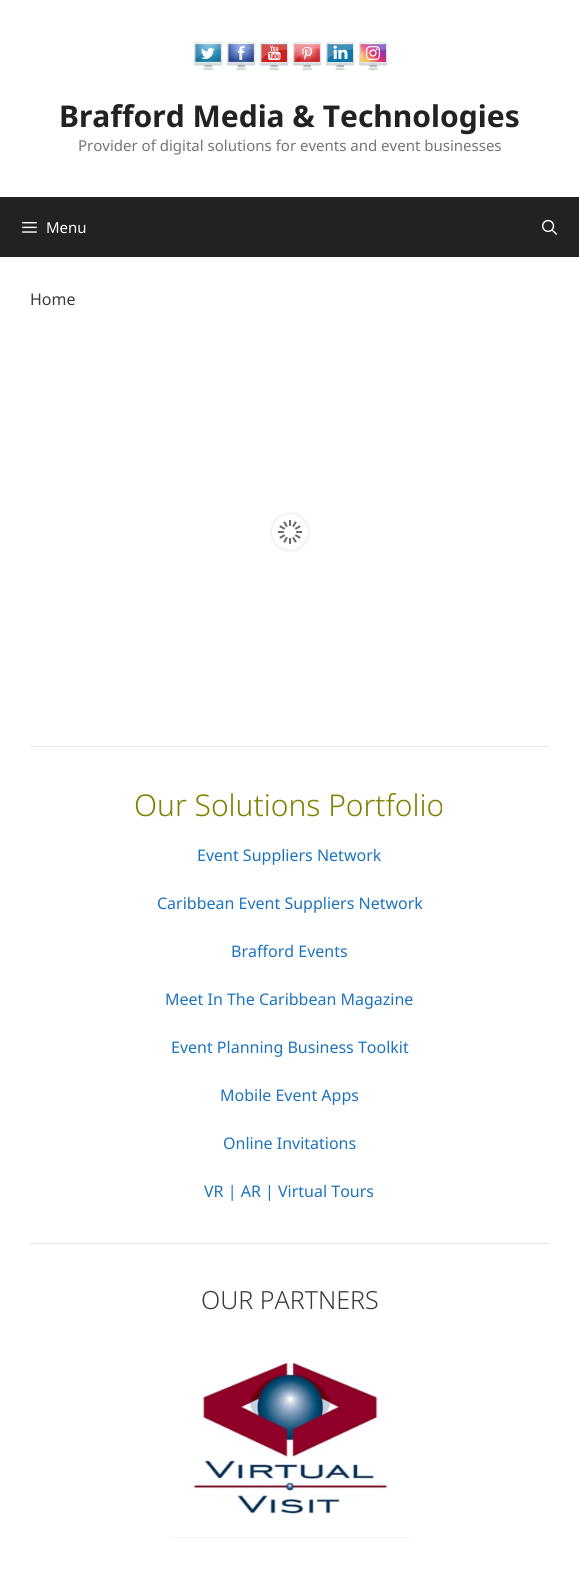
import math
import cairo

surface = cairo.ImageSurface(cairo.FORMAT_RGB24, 579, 1571)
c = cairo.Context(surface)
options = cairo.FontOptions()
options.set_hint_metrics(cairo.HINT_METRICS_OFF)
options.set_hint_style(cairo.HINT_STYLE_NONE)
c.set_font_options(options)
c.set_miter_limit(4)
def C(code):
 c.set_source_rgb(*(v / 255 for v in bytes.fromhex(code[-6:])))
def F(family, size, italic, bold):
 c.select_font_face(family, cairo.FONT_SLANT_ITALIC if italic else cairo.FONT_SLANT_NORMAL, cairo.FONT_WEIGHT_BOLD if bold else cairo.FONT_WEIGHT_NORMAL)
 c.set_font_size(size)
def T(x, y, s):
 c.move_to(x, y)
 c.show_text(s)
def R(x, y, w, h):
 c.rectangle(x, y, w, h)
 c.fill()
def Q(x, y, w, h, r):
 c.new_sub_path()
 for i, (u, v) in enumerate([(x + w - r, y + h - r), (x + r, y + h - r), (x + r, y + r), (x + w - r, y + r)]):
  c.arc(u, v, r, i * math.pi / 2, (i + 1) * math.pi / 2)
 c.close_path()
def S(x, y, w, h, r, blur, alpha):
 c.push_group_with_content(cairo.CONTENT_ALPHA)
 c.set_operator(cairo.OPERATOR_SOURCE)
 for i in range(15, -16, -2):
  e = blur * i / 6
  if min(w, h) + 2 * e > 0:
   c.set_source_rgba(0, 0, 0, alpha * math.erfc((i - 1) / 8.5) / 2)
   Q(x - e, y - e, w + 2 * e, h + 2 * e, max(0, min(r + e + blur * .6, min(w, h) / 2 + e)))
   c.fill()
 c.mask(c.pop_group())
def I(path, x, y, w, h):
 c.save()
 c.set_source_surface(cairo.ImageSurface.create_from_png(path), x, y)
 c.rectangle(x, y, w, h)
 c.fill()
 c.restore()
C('222222')
c.paint()
C('ffffff')
R(0,0,579,197)
I('1.png',194,42,29,28)
I('2.png',227,42,29,28)
I('3.png',260,42,29,28)
I('4.png',293,42,29,28)
I('5.png',326,42,29,28)
I('6.png',359,42,29,28)
F('Noto Sans',30,0,1)
C('222222')
T(59,127,'Brafford Media & Technologies')
F('Noto Sans',15,0,0)
C('757575')
T(78,151,'Provider of digital solutions for events and event businesses')
I('7.png',22,222,15,11)
C('ffffff')
T(46,233,'Menu')
I('8.png',542,219,15,16)
R(0,257,579,1314)
F('Noto Sans',16,0,0)
C('3a3a3a')
T(30,305,'Home')
C('1a1a1a')
S(272,514,36,36,18,1.5,.2)
C('ffffff')
c.arc(290,532,18,0,2 * math.pi)
c.fill()
I('9.png',278,520,24,24)
C('e6e6e6')
R(30,746,519,1)
F('Noto Sans Light',30,0,0)
C('808000')
T(134,816,'Our Solutions Portfolio')
F('Noto Sans',16,0,0)
C('1e73be')
T(197,861,'Event Suppliers Network')
T(157,909,'Caribbean Event Suppliers Network')
T(231,957,'Brafford Events')
T(165,1005,'Meet In The Caribbean Magazine')
T(171,1053,'Event Planning Business Toolkit')
T(220,1101,'Mobile Event Apps')
T(223,1149,'Online Invitations')
T(204,1197,'VR | AR | Virtual Tours')
C('e6e6e6')
R(30,1243,519,1)
F('Noto Sans Light',25,0,0)
C('3a3a3a')
T(201,1309,'OUR PARTNERS')
I('10.png',170,1362,240,176)
surface.write_to_png('o.png')
